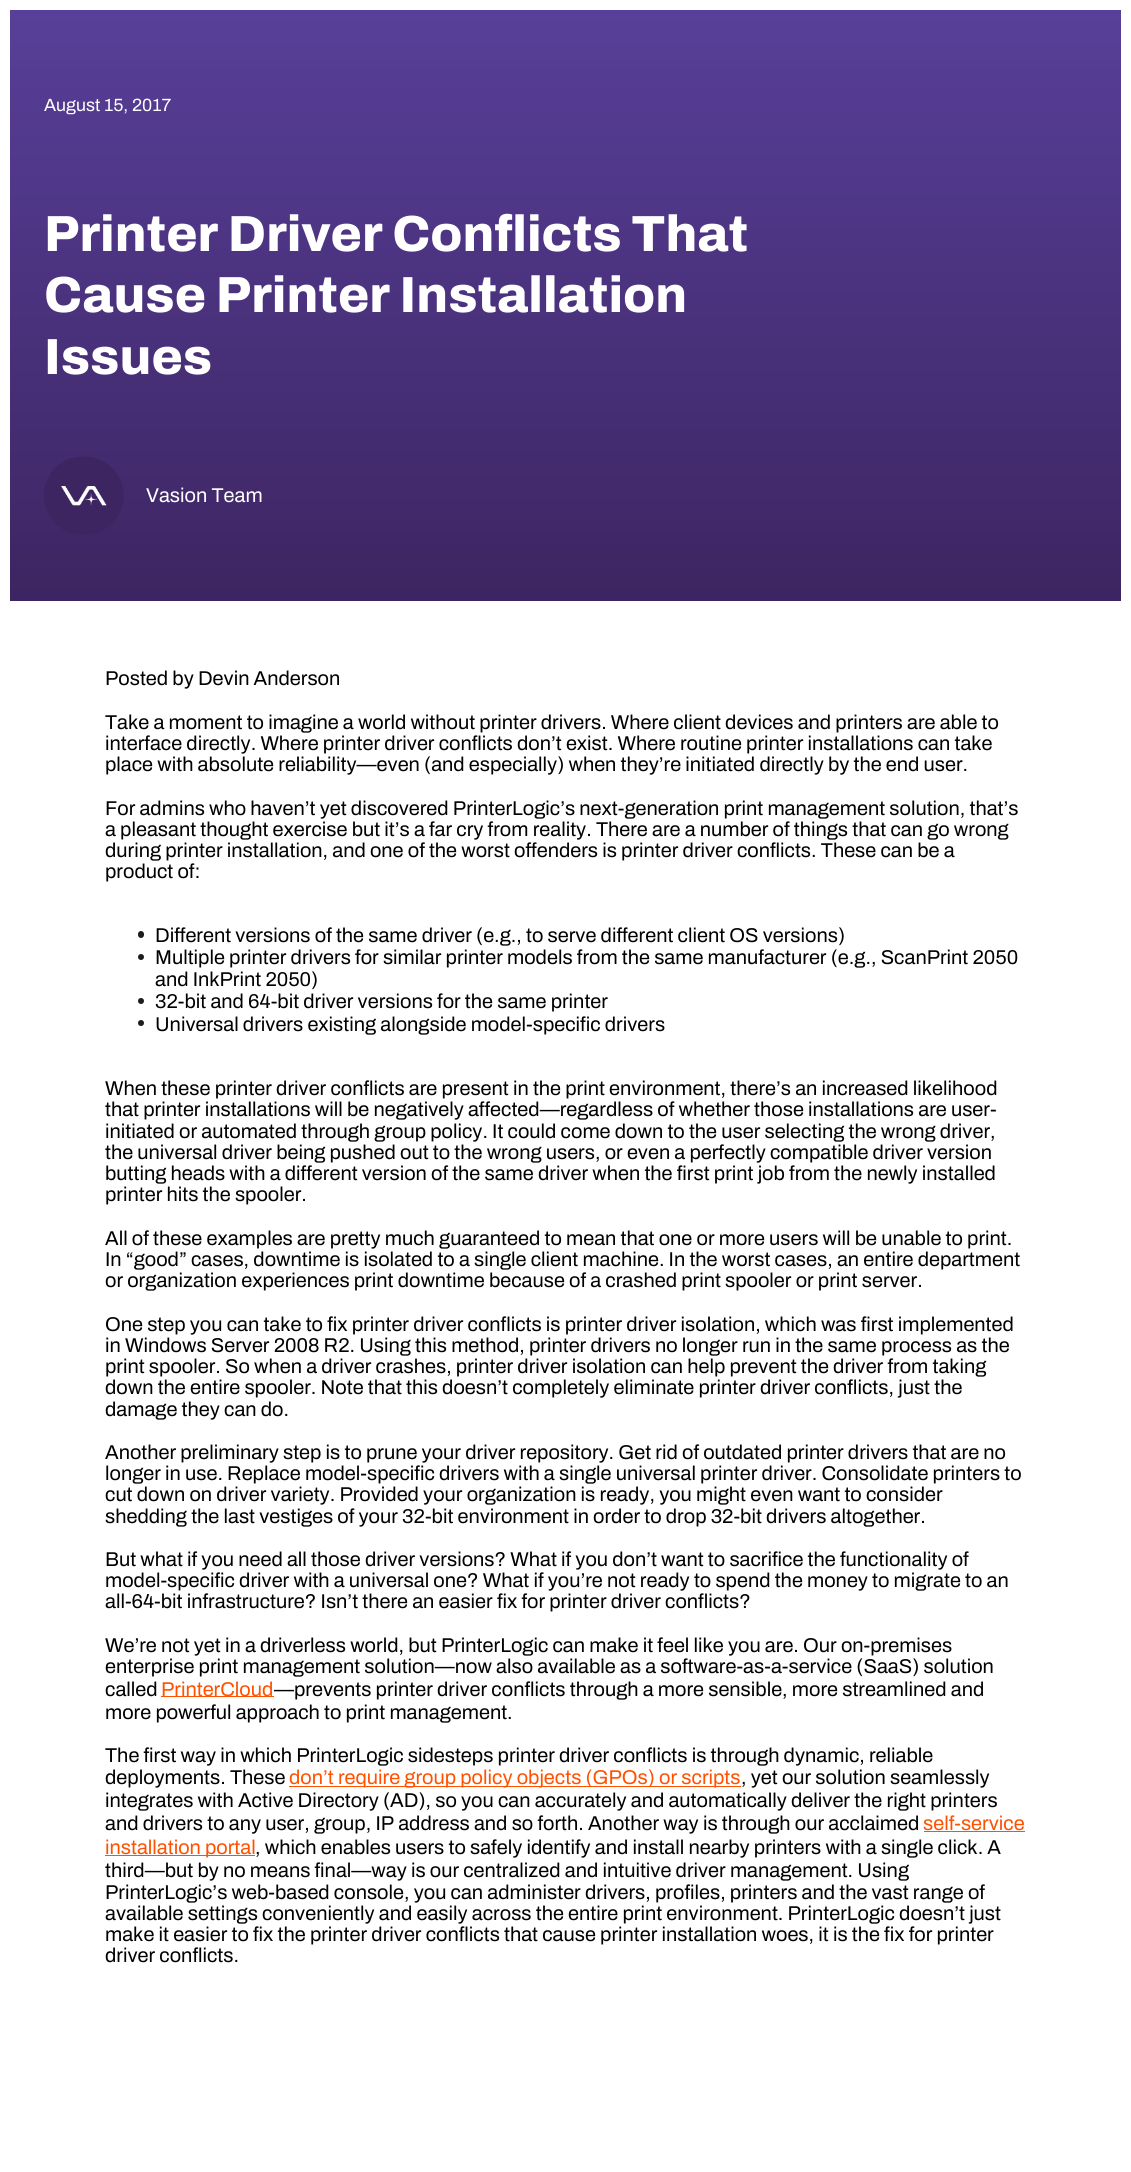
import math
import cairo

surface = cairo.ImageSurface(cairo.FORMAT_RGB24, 1131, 2172)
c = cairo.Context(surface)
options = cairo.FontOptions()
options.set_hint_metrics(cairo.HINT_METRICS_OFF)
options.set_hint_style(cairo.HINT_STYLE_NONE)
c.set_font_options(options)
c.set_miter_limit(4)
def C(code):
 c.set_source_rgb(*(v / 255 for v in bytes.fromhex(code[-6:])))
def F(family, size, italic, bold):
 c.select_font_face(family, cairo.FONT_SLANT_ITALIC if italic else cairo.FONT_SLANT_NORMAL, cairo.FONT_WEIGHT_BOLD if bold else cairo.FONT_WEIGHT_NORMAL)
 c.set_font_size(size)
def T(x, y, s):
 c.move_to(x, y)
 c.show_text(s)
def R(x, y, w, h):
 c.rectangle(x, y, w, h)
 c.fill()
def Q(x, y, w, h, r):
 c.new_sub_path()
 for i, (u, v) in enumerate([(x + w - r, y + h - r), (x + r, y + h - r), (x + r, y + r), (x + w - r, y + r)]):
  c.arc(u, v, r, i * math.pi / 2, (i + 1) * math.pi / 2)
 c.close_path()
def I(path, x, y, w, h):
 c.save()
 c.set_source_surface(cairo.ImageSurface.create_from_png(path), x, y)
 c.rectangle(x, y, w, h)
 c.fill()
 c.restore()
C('ffffff')
c.paint()
gradient = cairo.LinearGradient(566,10,566,601)
gradient.add_color_stop_rgba(0,0.345,0.247,0.6,1)
gradient.add_color_stop_rgba(1,0.239,0.145,0.384,1)
c.set_source(gradient)
R(10,10,1111,591)
F('Archivo',17.75,0,0)
C('ffffff')
T(44,111,'August 15, 2017')
F('Archivo ExtraBold',50.75,0,0)
T(44,251,'Printer Driver Conflicts That')
T(44,312,'Cause Printer Installation')
T(44,374,'Issues')
I('1.png',44,456,80,79)
F('Archivo',20,0,0)
T(146,502,'Vasion Team')
C('000000')
T(105,685,'Posted by Devin Anderson')
T(105,729,'Take a moment to imagine a world without printer drivers. Where client devices and printers are able to')
T(105,750,'interface directly. Where printer driver conflicts don’t exist. Where routine printer installations can take')
T(105,771,'place with absolute reliability—even (and especially) when they’re initiated directly by the end user.')
T(105,815,'For admins who haven’t yet discovered PrinterLogic’s next-generation print management solution, that’s')
T(105,836,'a pleasant thought exercise but it’s a far cry from reality. There are a number of things that can go wrong')
T(105,857,'during printer installation, and one of the worst offenders is printer driver conflicts. These can be a')
T(105,878,'product of:')
C('1b1d21')
Q(138,931,6,7,3)
c.fill()
C('000000')
T(155,942,'Different versions of the same driver (e.g., to serve different client OS versions)')
C('1b1d21')
c.new_path()
c.arc(141,957,3,0,2 * math.pi)
c.fill()
C('000000')
T(155,964,'Multiple printer drivers for similar printer models from the same manufacturer (e.g., ScanPrint 2050')
T(155,986,'and InkPrint 2050)')
C('1b1d21')
c.new_path()
c.arc(141,1001,3,0,2 * math.pi)
c.fill()
C('000000')
T(155,1008,'32-bit and 64-bit driver versions for the same printer')
C('1b1d21')
c.new_path()
c.arc(141,1023,3,0,2 * math.pi)
c.fill()
C('000000')
T(155,1031,'Universal drivers existing alongside model-specific drivers')
T(105,1095,'When these printer driver conflicts are present in the print environment, there’s an increased likelihood')
T(105,1116,'that printer installations will be negatively affected—regardless of whether those installations are user-')
T(105,1138,'initiated or automated through group policy. It could come down to the user selecting the wrong driver,')
T(105,1159,'the universal driver being pushed out to the wrong users, or even a perfectly compatible driver version')
T(105,1180,'butting heads with a different version of the same driver when the first print job from the newly installed')
T(105,1201,'printer hits the spooler.')
T(105,1245,'All of these examples are pretty much guaranteed to mean that one or more users will be unable to print.')
T(105,1266,'In “good” cases, downtime is isolated to a single client machine. In the worst cases, an entire department')
T(105,1287,'or organization experiences print downtime because of a crashed print spooler or print server.')
T(105,1331,'One step you can take to fix printer driver conflicts is printer driver isolation, which was first implemented')
T(105,1352,'in Windows Server 2008 R2. Using this method, printer drivers no longer run in the same process as the')
T(105,1373,'print spooler. So when a driver crashes, printer driver isolation can help prevent the driver from taking')
T(105,1394,'down the entire spooler. Note that this doesn’t completely eliminate printer driver conﬂicts, just the')
T(105,1416,'damage they can do.')
T(105,1459,'Another preliminary step is to prune your driver repository. Get rid of outdated printer drivers that are no')
T(105,1480,'longer in use. Replace model-specific drivers with a single universal printer driver. Consolidate printers to')
T(105,1501,'cut down on driver variety. Provided your organization is ready, you might even want to consider')
T(105,1523,'shedding the last vestiges of your 32-bit environment in order to drop 32-bit drivers altogether.')
T(105,1566,'But what if you need all those driver versions? What if you don’t want to sacrifice the functionality of')
T(105,1587,'model-specific driver with a universal one? What if you’re not ready to spend the money to migrate to an')
T(105,1608,'all-64-bit infrastructure? Isn’t there an easier fix for printer driver conflicts?')
T(105,1652,'We’re not yet in a driverless world, but PrinterLogic can make it feel like you are. Our on-premises')
T(105,1673,'enterprise print management solution—now also available as a software-as-a-service (SaaS) solution')
T(105,1696,'called')
C('ff5100')
R(161,1696,113,1)
T(161,1696,'PrinterCloud')
C('000000')
T(274,1696,'—prevents printer driver conflicts through a more sensible, more streamlined and')
T(105,1719,'more powerful approach to print management.')
T(105,1762,'The first way in which PrinterLogic sidesteps printer driver conflicts is through dynamic, reliable')
T(105,1784,'deployments. These')
C('ff5100')
R(289,1786,452,1)
T(289,1784,'don’t require group policy objects (GPOs) or scripts')
C('000000')
T(741,1784,', yet our solution seamlessly')
T(105,1807,'integrates with Active Directory (AD), so you can accurately and automatically deliver the right printers')
T(105,1830,'and drivers to any user, group, IP address and so forth. Another way is through our acclaimed')
C('ff5100')
T(923,1830,'self-service')
R(924,1831,101,1)
R(105,1855,150,1)
T(105,1854,'installation portal')
C('000000')
T(255,1854,', which enables users to safely identify and install nearby printers with a single click. A')
T(105,1877,'third—but by no means final—way is our centralized and intuitive driver management. Using')
T(105,1899,'PrinterLogic’s web-based console, you can administer drivers, profiles, printers and the vast range of')
T(105,1920,'available settings conveniently and easily across the entire print environment. PrinterLogic doesn’t just')
T(105,1941,'make it easier to fix the printer driver conflicts that cause printer installation woes, it is the fix for printer')
T(105,1962,'driver conflicts.')
surface.write_to_png('o.png')
